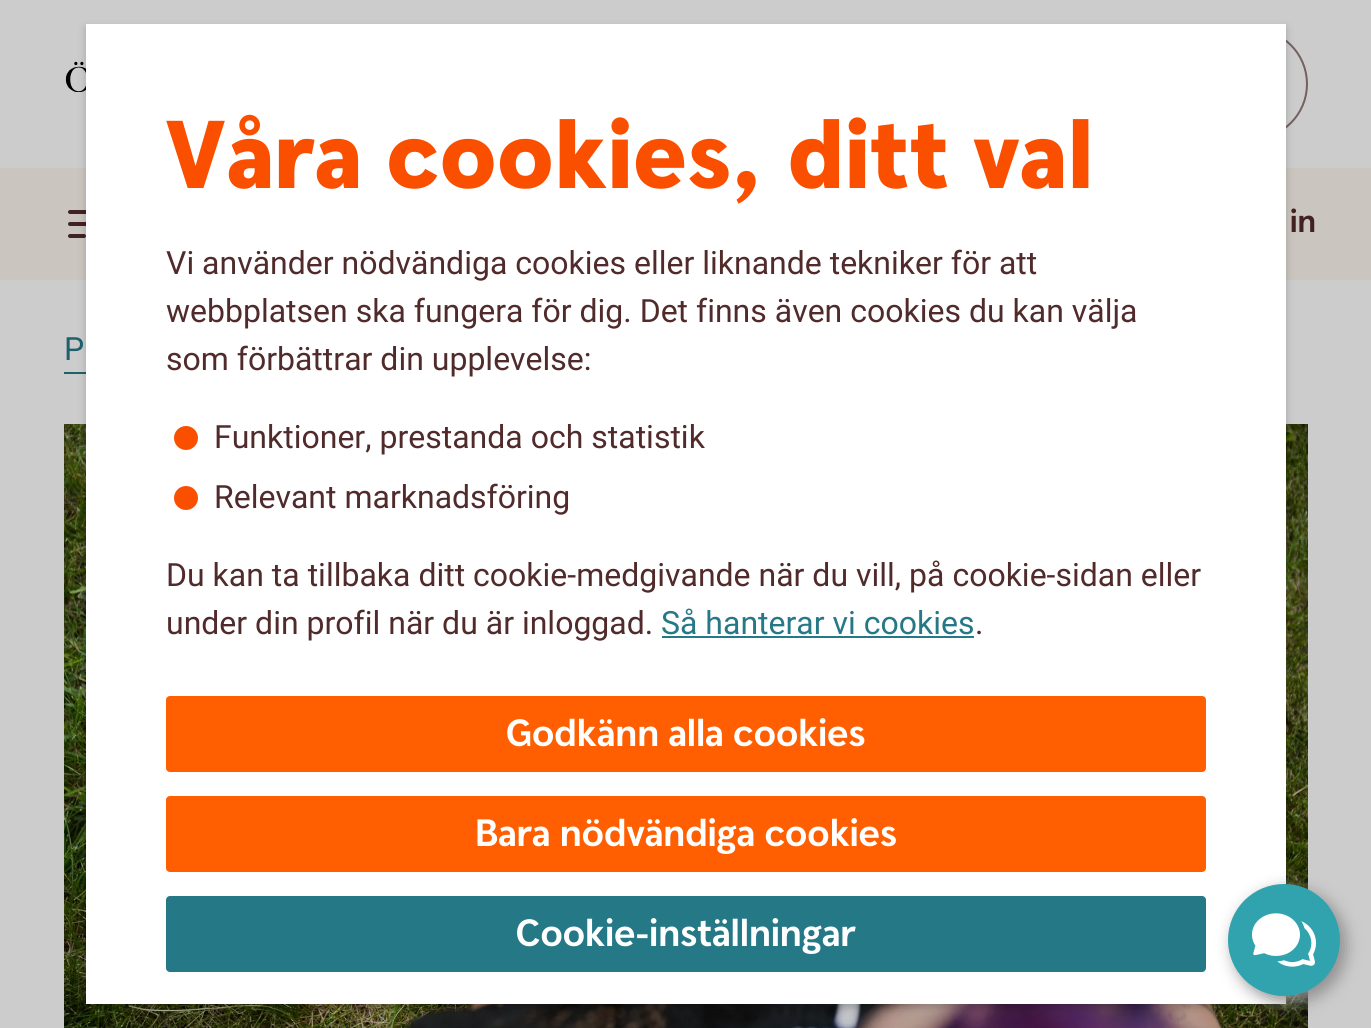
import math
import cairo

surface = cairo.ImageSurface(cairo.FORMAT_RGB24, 1371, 1028)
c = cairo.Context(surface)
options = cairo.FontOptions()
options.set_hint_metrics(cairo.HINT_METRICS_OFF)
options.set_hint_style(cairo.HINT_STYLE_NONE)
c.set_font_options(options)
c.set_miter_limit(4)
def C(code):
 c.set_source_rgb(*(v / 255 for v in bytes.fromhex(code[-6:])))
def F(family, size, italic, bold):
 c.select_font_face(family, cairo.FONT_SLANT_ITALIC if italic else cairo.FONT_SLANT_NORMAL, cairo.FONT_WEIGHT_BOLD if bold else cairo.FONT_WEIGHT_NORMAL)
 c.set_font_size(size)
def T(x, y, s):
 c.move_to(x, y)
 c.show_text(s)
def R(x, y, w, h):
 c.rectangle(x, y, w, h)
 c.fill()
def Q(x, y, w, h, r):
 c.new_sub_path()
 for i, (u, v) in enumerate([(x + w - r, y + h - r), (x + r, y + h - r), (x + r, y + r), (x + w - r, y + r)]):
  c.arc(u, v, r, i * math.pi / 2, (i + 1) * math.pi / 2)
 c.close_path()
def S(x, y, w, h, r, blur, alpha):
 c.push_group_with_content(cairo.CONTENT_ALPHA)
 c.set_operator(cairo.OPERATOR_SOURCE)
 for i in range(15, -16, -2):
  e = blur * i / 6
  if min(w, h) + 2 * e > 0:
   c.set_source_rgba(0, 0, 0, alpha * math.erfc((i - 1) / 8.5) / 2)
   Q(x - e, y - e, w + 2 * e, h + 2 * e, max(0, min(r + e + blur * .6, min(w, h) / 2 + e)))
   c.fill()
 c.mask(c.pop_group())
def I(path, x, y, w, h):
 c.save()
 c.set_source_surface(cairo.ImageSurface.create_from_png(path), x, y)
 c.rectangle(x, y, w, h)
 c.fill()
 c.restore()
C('cccccc')
c.paint()
I('1.png',65,61,21,31)
Q(829,29,478,110,55)
C('74605f')
c.stroke()
C('cac5be')
R(0,168,1371,112)
C('412222')
Q(68,210,28,4,2)
c.fill()
Q(68,222,38,4,2)
c.fill()
Q(68,234,18,4,2)
c.fill()
C('1e606b')
R(64,372,22,2)
I('2.png',64,424,1244,604)
C('000000')
S(86,28,1200,980,0,4,.2)
C('ffffff')
R(86,24,1200,980)
F('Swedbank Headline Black',96,0,0)
C('fb4f00')
T(166,188,'Våra cookies, ditt val')
F('Roboto',32,0,0)
C('512b2b')
T(166,274,'Vi använder nödvändiga cookies eller liknande tekniker för att')
T(166,322,'webbplatsen ska fungera för dig. Det finns även cookies du kan välja')
T(166,370,'som förbättrar din upplevelse:')
C('fb4f00')
c.new_path()
c.arc(186,438,12,0,2 * math.pi)
c.fill()
C('512b2b')
T(214,448,'Funktioner, prestanda och statistik')
C('fb4f00')
c.new_path()
c.arc(186,498,12,0,2 * math.pi)
c.fill()
C('512b2b')
T(214,508,'Relevant marknadsföring')
T(166,586,'Du kan ta tillbaka ditt cookie-medgivande när du vill, på cookie-sidan eller')
T(166,634,'under din profil när du är inloggad.')
C('257886')
T(661,634,'Så hanterar vi cookies')
R(662,636,312,2)
C('512b2b')
T(975,634,'.')
C('ff5f00')
Q(166,696,1040,76,4)
c.fill()
F('Swedbank Headline',38,0,1)
C('ffffff')
T(506,746,'Godkänn alla cookies')
C('ff5f00')
Q(166,796,1040,76,4)
c.fill()
C('ffffff')
T(475,846,'Bara nödvändiga cookies')
C('257886')
Q(166,896,1040,76,4)
c.fill()
C('ffffff')
T(516,946,'Cookie-inställningar')
F('Swedbank Headline',32,0,1)
C('412222')
T(1290,232,'in')
F('Roboto',32,0,0)
C('1e606b')
T(64,360,'P')
C('908e8e')
S(1234,890,112,112,56,8,1)
C('31a3ae')
c.arc(1284,940,56,0,2 * math.pi)
c.fill()
I('3.png',1252,913,64,54)
surface.write_to_png('o.png')
